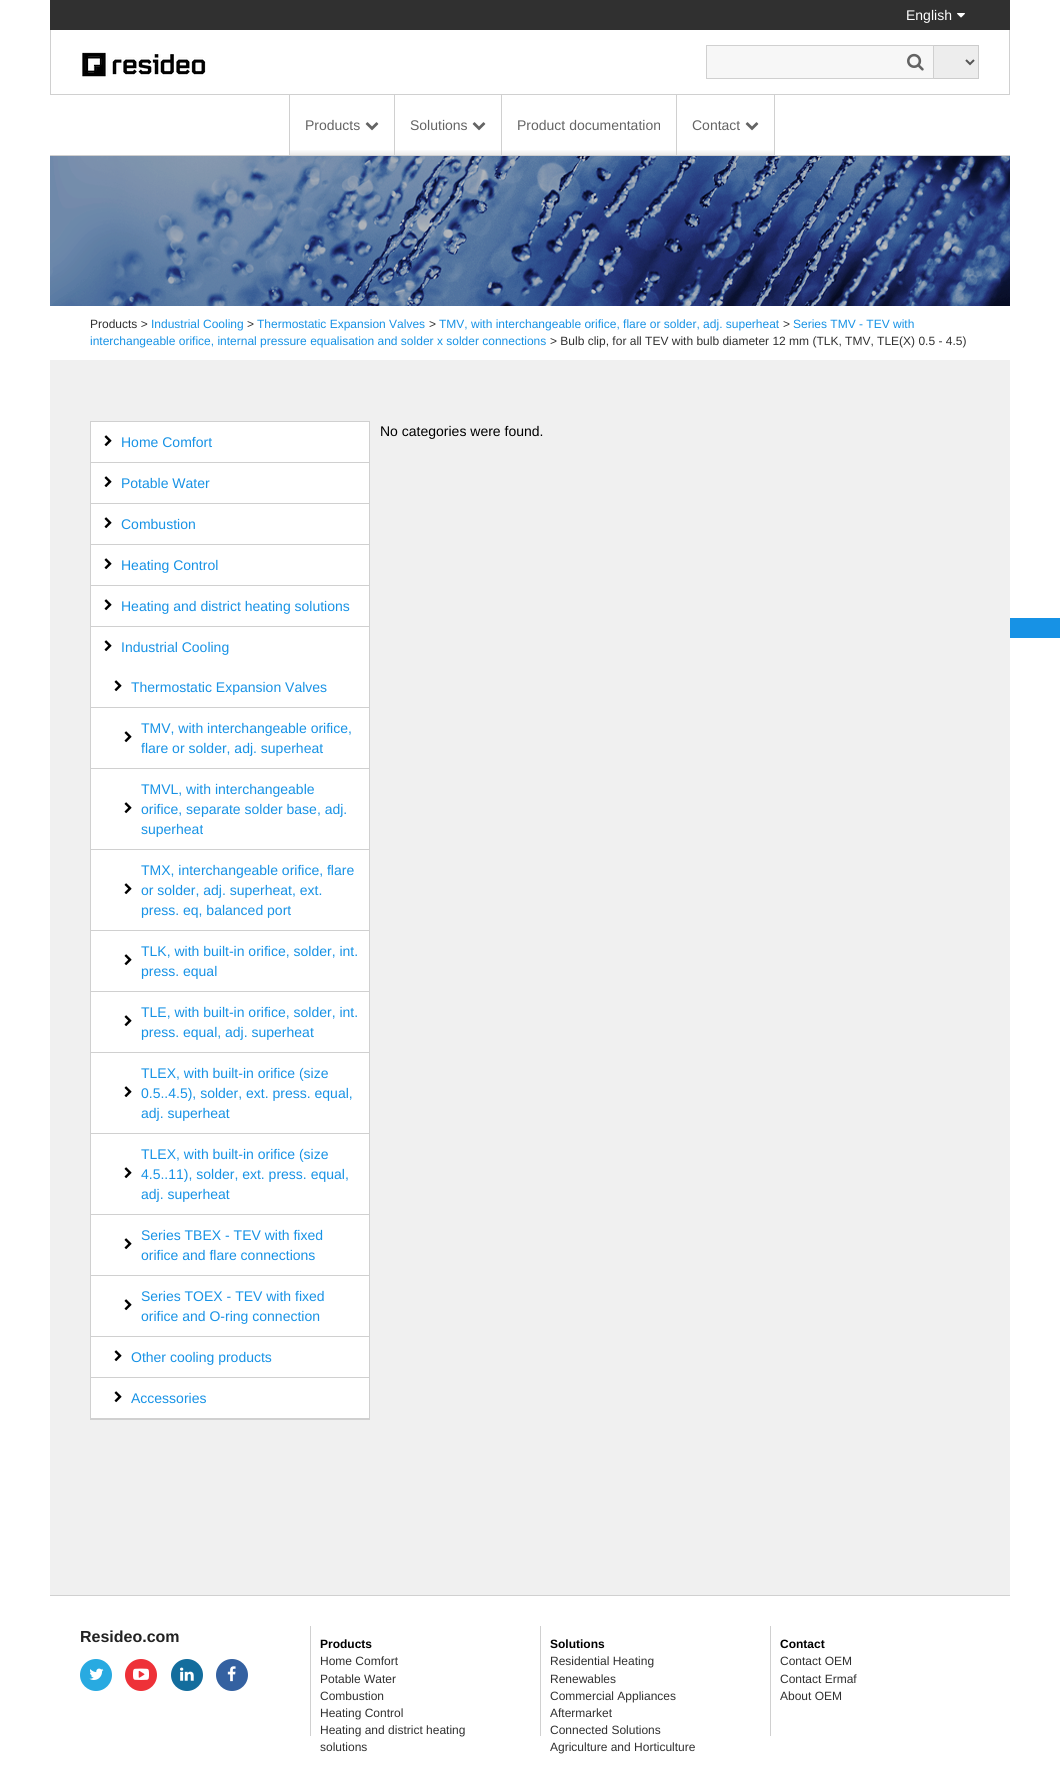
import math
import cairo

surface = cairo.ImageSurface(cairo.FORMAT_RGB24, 1060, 1765)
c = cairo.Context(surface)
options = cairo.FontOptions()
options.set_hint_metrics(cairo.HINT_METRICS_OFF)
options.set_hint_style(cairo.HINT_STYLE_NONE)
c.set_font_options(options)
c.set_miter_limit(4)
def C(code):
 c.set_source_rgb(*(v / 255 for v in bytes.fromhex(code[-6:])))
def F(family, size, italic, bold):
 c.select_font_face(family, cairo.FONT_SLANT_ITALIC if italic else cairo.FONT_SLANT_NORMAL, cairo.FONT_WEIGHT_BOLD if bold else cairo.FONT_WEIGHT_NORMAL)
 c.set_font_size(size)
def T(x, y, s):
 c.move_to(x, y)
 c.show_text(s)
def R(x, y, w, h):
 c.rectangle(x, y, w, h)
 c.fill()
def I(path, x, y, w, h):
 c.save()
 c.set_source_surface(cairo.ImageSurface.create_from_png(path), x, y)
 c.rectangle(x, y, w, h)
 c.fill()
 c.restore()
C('ffffff')
c.paint()
C('303030')
R(50,0,960,30)
F('Liberation Sans',14,0,0)
C('ffffff')
T(906,20,'English')
I('1.png',957,13,8,5)
C('d0d0d0')
R(1009,30,1,65)
R(50,94,960,1)
R(50,30,1,65)
I('2.png',82,52,124,25)
C('ededed')
c.rectangle(933.5,45.5,45,33)
c.fill_preserve()
C('cccccc')
c.set_line_width(1)
c.stroke()
C('f7f7f7')
c.rectangle(706.5,45.5,227,33)
c.fill_preserve()
C('d0d0d0')
c.stroke()
I('3.png',907,53,17,18)
c.new_path()
c.move_to(966,60)
c.line_to(970,64)
c.line_to(974,60)
C('555555')
c.set_line_width(2)
c.stroke()
C('d0d0d0')
R(289,95,1,60)
gradient = cairo.LinearGradient(342,95,342,155)
gradient.add_color_stop_rgba(0,1,1,1,1)
gradient.add_color_stop_rgba(.9,1,1,1,1)
gradient.add_color_stop_rgba(1,0.918,0.918,0.918,1)
c.set_source(gradient)
R(290,150,104,5)
C('646464')
T(305,130,'Products')
I('4.png',365,122,14,9)
C('d0d0d0')
R(394,95,1,60)
gradient = cairo.LinearGradient(448,95,448,155)
gradient.add_color_stop_rgba(0,1,1,1,1)
gradient.add_color_stop_rgba(.9,1,1,1,1)
gradient.add_color_stop_rgba(1,0.918,0.918,0.918,1)
c.set_source(gradient)
R(395,150,106,5)
C('646464')
T(410,130,'Solutions')
I('4.png',472,122,14,9)
C('d0d0d0')
R(501,95,1,60)
gradient = cairo.LinearGradient(589,95,589,155)
gradient.add_color_stop_rgba(0,1,1,1,1)
gradient.add_color_stop_rgba(.9,1,1,1,1)
gradient.add_color_stop_rgba(1,0.918,0.918,0.918,1)
c.set_source(gradient)
R(502,150,174,5)
C('646464')
T(517,130,'Product documentation')
C('d0d0d0')
R(774,95,1,60)
R(676,95,1,60)
gradient = cairo.LinearGradient(726,95,726,155)
gradient.add_color_stop_rgba(0,1,1,1,1)
gradient.add_color_stop_rgba(.9,1,1,1,1)
gradient.add_color_stop_rgba(1,0.918,0.918,0.918,1)
c.set_source(gradient)
R(677,150,97,5)
C('646464')
T(692,130,'Contact')
I('4.png',745,122,14,9)
C('f0f0f0')
R(50,360,960,1235)
C('d0d0d0')
R(50,155,960,1)
I('5.png',50,156,960,150)
F('Liberation Sans',12,0,0)
C('303030')
T(90,328,'Products >')
C('1792e5')
T(151,328,'Industrial Cooling')
C('303030')
T(247,328,'>')
C('1792e5')
T(257,328,'Thermostatic Expansion Valves')
C('303030')
T(429,328,'>')
C('1792e5')
T(439,328,'TMV, with interchangeable orifice, flare or solder, adj. superheat')
C('303030')
T(783,328,'>')
C('1792e5')
T(793,328,'Series TMV - TEV with')
T(90,345,'interchangeable orifice, internal pressure equalisation and solder x solder connections')
C('303030')
T(550,345,'> Bulb clip, for all TEV with bulb diameter 12 mm (TLK, TMV, TLE(X) 0.5 - 4.5)')
F('Liberation Sans',14,0,0)
C('000000')
T(380,436,'No categories were found.')
C('ffffff')
R(91,422,278,996)
c.rectangle(90.5,421.5,279,998)
C('d0d0d0')
c.set_line_width(1)
c.stroke()
R(91,462,278,1)
I('6.png',104,435,8,12)
C('1792e5')
T(121,447,'Home Comfort')
C('d0d0d0')
R(91,503,278,1)
I('6.png',104,476,8,12)
C('1792e5')
T(121,488,'Potable Water')
C('d0d0d0')
R(91,544,278,1)
I('6.png',104,517,8,12)
C('1792e5')
T(121,529,'Combustion')
C('d0d0d0')
R(91,585,278,1)
I('6.png',104,558,8,12)
C('1792e5')
T(121,570,'Heating Control')
C('d0d0d0')
R(91,626,278,1)
I('6.png',104,599,8,12)
C('1792e5')
T(121,611,'Heating and district heating solutions')
I('6.png',104,640,8,12)
T(121,652,'Industrial Cooling')
C('d0d0d0')
R(91,707,278,1)
I('6.png',114,680,8,12)
C('1792e5')
T(131,692,'Thermostatic Expansion Valves')
C('d0d0d0')
R(91,768,278,1)
I('6.png',124,731,8,12)
C('1792e5')
T(141,733,'TMV, with interchangeable orifice,')
T(141,753,'flare or solder, adj. superheat')
C('d0d0d0')
R(91,849,278,1)
C('1792e5')
T(141,794,'TMVL, with interchangeable')
I('6.png',124,802,8,12)
T(141,814,'orifice, separate solder base, adj.')
T(141,834,'superheat')
C('d0d0d0')
R(91,930,278,1)
C('1792e5')
T(141,875,'TMX, interchangeable orifice, flare')
I('6.png',124,883,8,12)
T(141,895,'or solder, adj. superheat, ext.')
T(141,915,'press. eq, balanced port')
C('d0d0d0')
R(91,991,278,1)
C('1792e5')
T(141,956,'TLK, with built-in orifice, solder, int.')
I('6.png',124,954,8,12)
T(141,976,'press. equal')
C('d0d0d0')
R(91,1052,278,1)
C('1792e5')
T(141,1017,'TLE, with built-in orifice, solder, int.')
I('6.png',124,1015,8,12)
T(141,1037,'press. equal, adj. superheat')
C('d0d0d0')
R(91,1133,278,1)
C('1792e5')
T(141,1078,'TLEX, with built-in orifice (size')
I('6.png',124,1086,8,12)
T(141,1098,'0.5..4.5), solder, ext. press. equal,')
T(141,1118,'adj. superheat')
C('d0d0d0')
R(91,1214,278,1)
C('1792e5')
T(141,1159,'TLEX, with built-in orifice (size')
I('6.png',124,1167,8,12)
T(141,1179,'4.5..11), solder, ext. press. equal,')
T(141,1199,'adj. superheat')
C('d0d0d0')
R(91,1275,278,1)
C('1792e5')
T(141,1240,'Series TBEX - TEV with fixed')
I('6.png',124,1238,8,12)
T(141,1260,'orifice and flare connections')
C('d0d0d0')
R(91,1336,278,1)
C('1792e5')
T(141,1301,'Series TOEX - TEV with fixed')
I('6.png',124,1299,8,12)
T(141,1321,'orifice and O-ring connection')
C('d0d0d0')
R(91,1377,278,1)
I('6.png',114,1350,8,12)
C('1792e5')
T(131,1362,'Other cooling products')
C('d0d0d0')
R(91,1418,278,1)
I('6.png',114,1391,8,12)
C('1792e5')
T(131,1403,'Accessories')
R(1010,618,50,20)
C('d0d0d0')
R(50,1595,960,1)
F('Liberation Sans',16,0,1)
C('222222')
T(80,1642,'Resideo.com')
C('28aae1')
c.new_path()
c.arc(96,1675,16,0,2 * math.pi)
c.fill()
I('7.png',89,1668,15,12)
C('ee3138')
c.arc(141,1675,16,0,2 * math.pi)
c.fill()
I('8.png',133,1668,16,12)
C('136d9d')
c.arc(187,1675,16,0,2 * math.pi)
c.fill()
I('9.png',180,1667,14,14)
C('3461a1')
c.arc(232,1675,16,0,2 * math.pi)
c.fill()
I('10.png',227,1666,9,16)
C('d0d0d0')
R(310,1626,1,110)
F('Liberation Sans',12,0,1)
C('000000')
T(320,1648,'Products')
F('Liberation Sans',12,0,0)
C('303030')
T(320,1665,'Home Comfort')
T(320,1683,'Potable Water')
T(320,1700,'Combustion')
T(320,1717,'Heating Control')
T(320,1734,'Heating and district heating')
T(320,1751,'solutions')
C('d0d0d0')
R(540,1626,1,110)
F('Liberation Sans',12,0,1)
C('000000')
T(550,1648,'Solutions')
F('Liberation Sans',12,0,0)
C('303030')
T(550,1665,'Residential Heating')
T(550,1683,'Renewables')
T(550,1700,'Commercial Appliances')
T(550,1717,'Aftermarket')
T(550,1734,'Connected Solutions')
T(550,1751,'Agriculture and Horticulture')
C('d0d0d0')
R(770,1626,1,110)
F('Liberation Sans',12,0,1)
C('000000')
T(780,1648,'Contact')
F('Liberation Sans',12,0,0)
C('303030')
T(780,1665,'Contact OEM')
T(780,1683,'Contact Ermaf')
T(780,1700,'About OEM')
surface.write_to_png('o.png')
